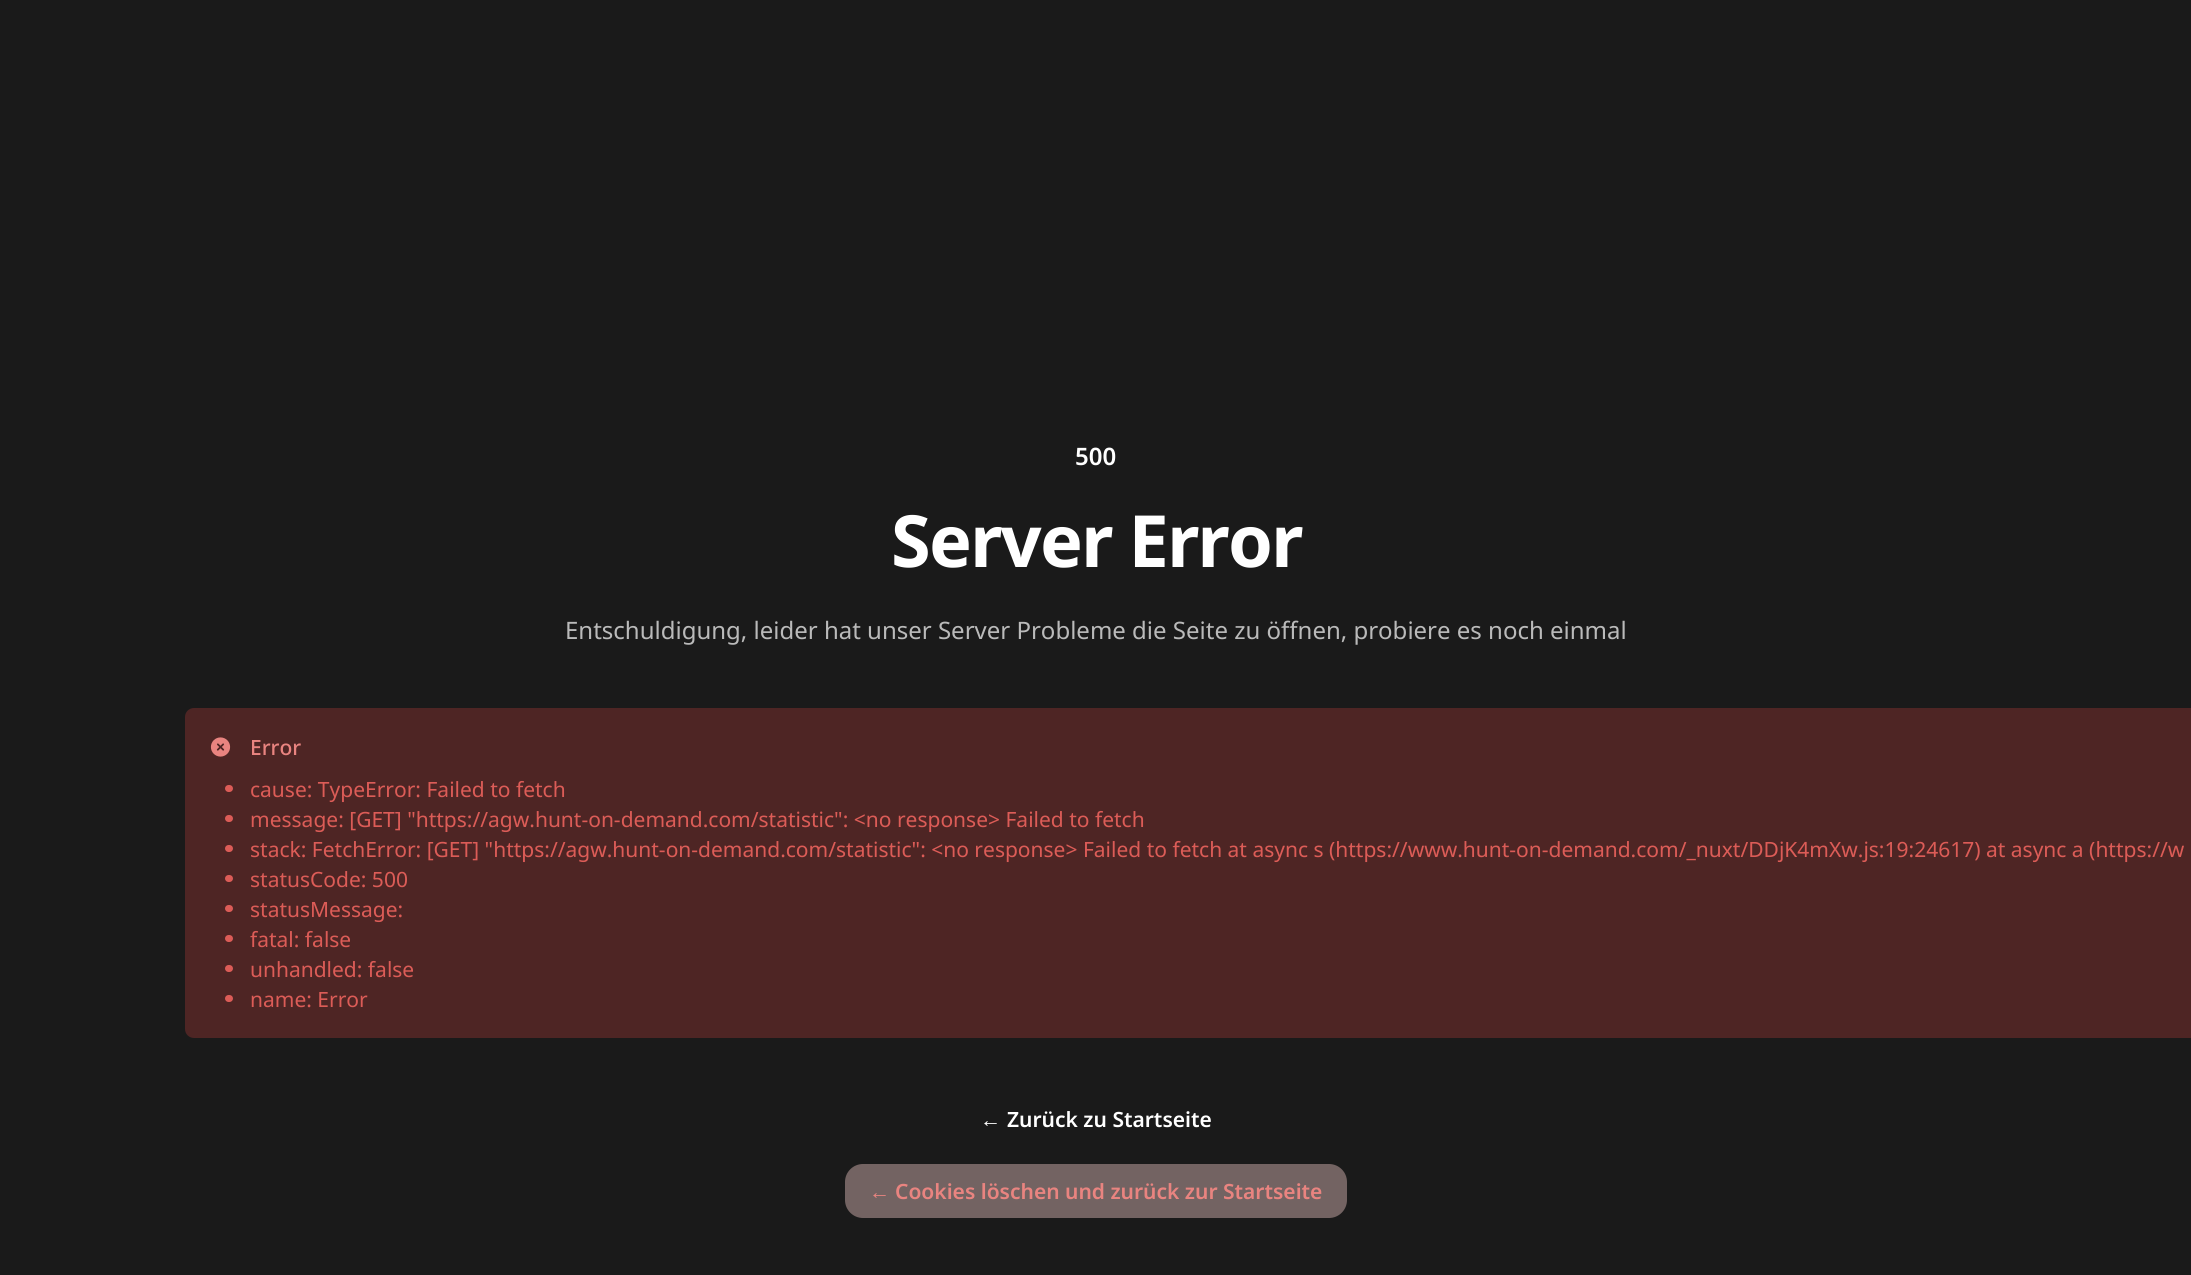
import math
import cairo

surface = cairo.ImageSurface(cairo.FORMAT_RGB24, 2191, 1275)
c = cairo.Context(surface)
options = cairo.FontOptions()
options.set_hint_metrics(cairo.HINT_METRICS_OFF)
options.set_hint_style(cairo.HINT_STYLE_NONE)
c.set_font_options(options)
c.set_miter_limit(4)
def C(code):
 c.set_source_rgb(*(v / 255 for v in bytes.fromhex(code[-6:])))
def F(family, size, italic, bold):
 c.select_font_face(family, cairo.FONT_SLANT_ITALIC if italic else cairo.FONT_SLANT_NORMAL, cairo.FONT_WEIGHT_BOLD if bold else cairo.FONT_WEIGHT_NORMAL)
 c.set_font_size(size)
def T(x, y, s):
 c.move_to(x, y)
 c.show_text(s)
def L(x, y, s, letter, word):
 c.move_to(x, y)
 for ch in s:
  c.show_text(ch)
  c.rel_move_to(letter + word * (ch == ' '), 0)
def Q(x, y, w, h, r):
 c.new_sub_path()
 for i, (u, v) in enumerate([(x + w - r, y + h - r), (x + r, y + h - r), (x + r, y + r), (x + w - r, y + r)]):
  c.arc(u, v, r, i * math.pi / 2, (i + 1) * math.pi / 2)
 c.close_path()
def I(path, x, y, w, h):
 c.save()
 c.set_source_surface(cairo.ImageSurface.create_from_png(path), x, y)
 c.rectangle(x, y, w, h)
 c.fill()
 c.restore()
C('1a1a1a')
c.paint()
F('Noto Sans SemiBold',24,0,0)
C('ffffff')
T(1075,465,'500')
F('Noto Sans',72,0,1)
L(891,567,'Server Error',-1.75,0)
F('Noto Sans',24,0,0)
C('bababa')
T(565,639,'Entschuldigung, leider hat unser Server Probleme die Seite zu öffnen, probiere es noch einmal')
C('4e2524')
Q(185,708,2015,330,9)
c.fill()
I('1.png',210,737,21,20)
F('Noto Sans Medium',21,0,0)
C('e98480')
T(250,755,'Error')
C('dc5c57')
Q(225,785,8,7,3.5)
c.fill()
F('Noto Sans',21,0,0)
T(250,797,'cause: TypeError: Failed to fetch')
Q(225,815,8,7,3.5)
c.fill()
T(250,827,'message: [GET] "https://agw.hunt-on-demand.com/statistic": <no response> Failed to fetch')
Q(225,845,8,7,3.5)
c.fill()
T(250,857,'stack: FetchError: [GET] "https://agw.hunt-on-demand.com/statistic": <no response> Failed to fetch at async s (https://www.hunt-on-demand.com/_nuxt/DDjK4mXw.js:19:24617) at async a (https://w')
Q(225,875,8,7,3.5)
c.fill()
T(250,887,'statusCode: 500')
Q(225,905,8,7,3.5)
c.fill()
T(250,917,'statusMessage:')
Q(225,935,8,7,3.5)
c.fill()
T(250,947,'fatal: false')
Q(225,965,8,7,3.5)
c.fill()
T(250,977,'unhandled: false')
Q(225,995,8,7,3.5)
c.fill()
T(250,1007,'name: Error')
F('Liberation Sans',21,0,1)
C('ffffff')
T(980,1127,'←')
F('Noto Sans SemiBold',21,0,0)
T(1007,1127,'Zurück zu Startseite')
C('736362')
Q(845,1164,502,54,18)
c.fill()
F('Liberation Sans',21,0,1)
C('e98480')
T(869,1199,'←')
F('Noto Sans SemiBold',21,0,0)
T(895,1199,'Cookies löschen und zurück zur Startseite')
surface.write_to_png('o.png')
